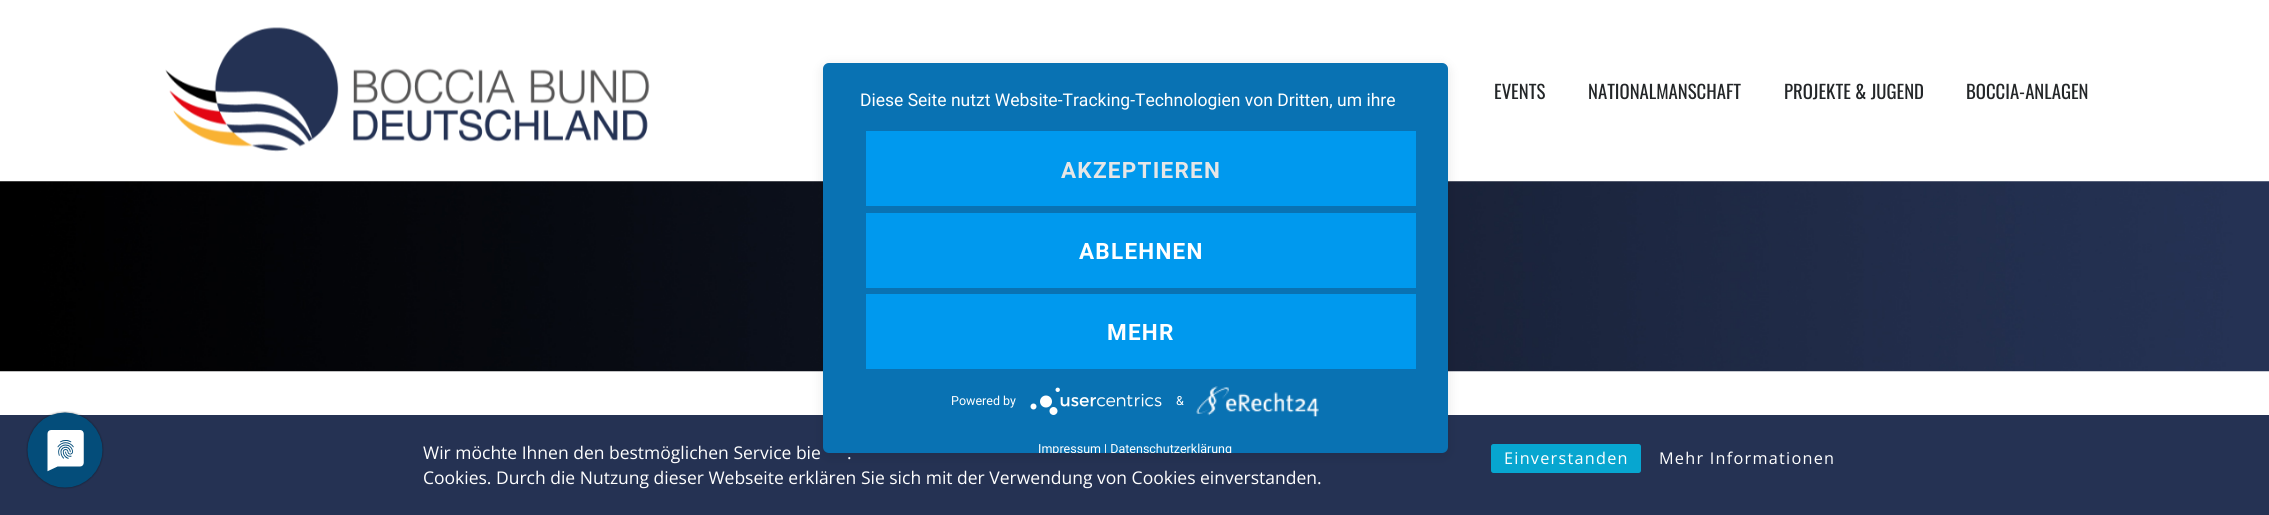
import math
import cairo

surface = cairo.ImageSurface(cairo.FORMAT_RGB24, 2269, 515)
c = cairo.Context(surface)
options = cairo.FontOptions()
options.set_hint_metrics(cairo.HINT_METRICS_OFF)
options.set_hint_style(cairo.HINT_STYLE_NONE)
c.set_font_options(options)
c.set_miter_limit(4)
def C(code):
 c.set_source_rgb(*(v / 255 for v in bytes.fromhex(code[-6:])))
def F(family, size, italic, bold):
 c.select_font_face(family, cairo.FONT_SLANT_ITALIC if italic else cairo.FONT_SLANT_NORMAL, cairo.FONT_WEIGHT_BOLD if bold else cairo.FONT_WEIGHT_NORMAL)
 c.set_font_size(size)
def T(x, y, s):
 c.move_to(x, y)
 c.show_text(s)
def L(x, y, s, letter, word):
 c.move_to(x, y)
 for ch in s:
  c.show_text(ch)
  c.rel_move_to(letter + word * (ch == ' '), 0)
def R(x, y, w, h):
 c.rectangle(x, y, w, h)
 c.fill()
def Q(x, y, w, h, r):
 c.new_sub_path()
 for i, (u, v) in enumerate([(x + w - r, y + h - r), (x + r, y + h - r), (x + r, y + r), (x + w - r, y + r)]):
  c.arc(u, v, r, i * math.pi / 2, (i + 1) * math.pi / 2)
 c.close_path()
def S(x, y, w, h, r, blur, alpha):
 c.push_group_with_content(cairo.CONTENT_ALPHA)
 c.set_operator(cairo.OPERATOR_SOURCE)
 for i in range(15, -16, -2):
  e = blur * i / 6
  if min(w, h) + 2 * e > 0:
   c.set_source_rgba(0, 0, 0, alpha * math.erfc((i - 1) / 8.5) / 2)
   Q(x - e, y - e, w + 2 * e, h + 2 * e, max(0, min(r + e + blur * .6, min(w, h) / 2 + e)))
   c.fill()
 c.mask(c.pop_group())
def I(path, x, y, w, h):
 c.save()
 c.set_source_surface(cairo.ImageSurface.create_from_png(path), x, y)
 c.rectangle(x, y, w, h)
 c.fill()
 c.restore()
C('ffffff')
c.paint()
C('253253')
R(0,415,2269,100)
I('1.png',26,411,78,78)
I('5.png',0,181,2269,191)
C('000000')
S(823,66,625,390,6,6,.1)
C('07a6d0')
Q(1491,444,150,29,2.5)
c.fill()
c.save()
Q(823,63,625,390,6)
c.clip()
C('000000')
S(823,70,625,413,0,22.5,.3)
c.restore()
C('0972b3')
Q(823,63,625,390,6)
c.fill()
F('Roboto',17.5,0,0)
C('ffffff')
T(860,106,'Diese Seite nutzt Website-Tracking-Technologien von Dritten, um ihre')
C('0099ee')
R(866,131,550,75)
F('Roboto',22.5,0,1)
C('e6e6e6')
L(1061,178,'AKZEPTIEREN',1.25,0)
C('0099ee')
R(866,213,550,75)
C('ffffff')
L(1079,259,'ABLEHNEN',1.25,0)
C('0099ee')
R(866,294,550,75)
C('ffffff')
L(1107,340,'MEHR',1.25,0)
F('Roboto',12.5,0,0)
T(951,405,'Powered by')
I('2.png',1030,387,132,28)
T(1176,405,'&')
I('3.png',1196,386,123,31)
c.save()
Q(823,63,625,390,6)
c.clip()
T(1038,453,'Impressum | Datenschutzerklärung')
c.restore()
I('4.png',165,27,485,125)
F('Oswald',18.75,0,0)
C('232628')
T(1494,99,'EVENTS')
T(1588,99,'NATIONALMANSCHAFT')
T(1784,99,'PROJEKTE & JUGEND')
T(1966,99,'BOCCIA-ANLAGEN')
F('Open Sans',17.5,0,0)
C('ffffff')
T(423,459,'Wir möchte Ihnen den bestmöglichen Service bie')
T(847,459,'.')
T(423,484,'Cookies. Durch die Nutzung dieser Webseite erklären Sie sich mit der Verwendung von Cookies einverstanden.')
F('Open Sans',16.25,0,0)
L(1504,464,'Einverstanden',1.25,0)
L(1659,464,'Mehr Informationen',1.25,0)
surface.write_to_png('o.png')
